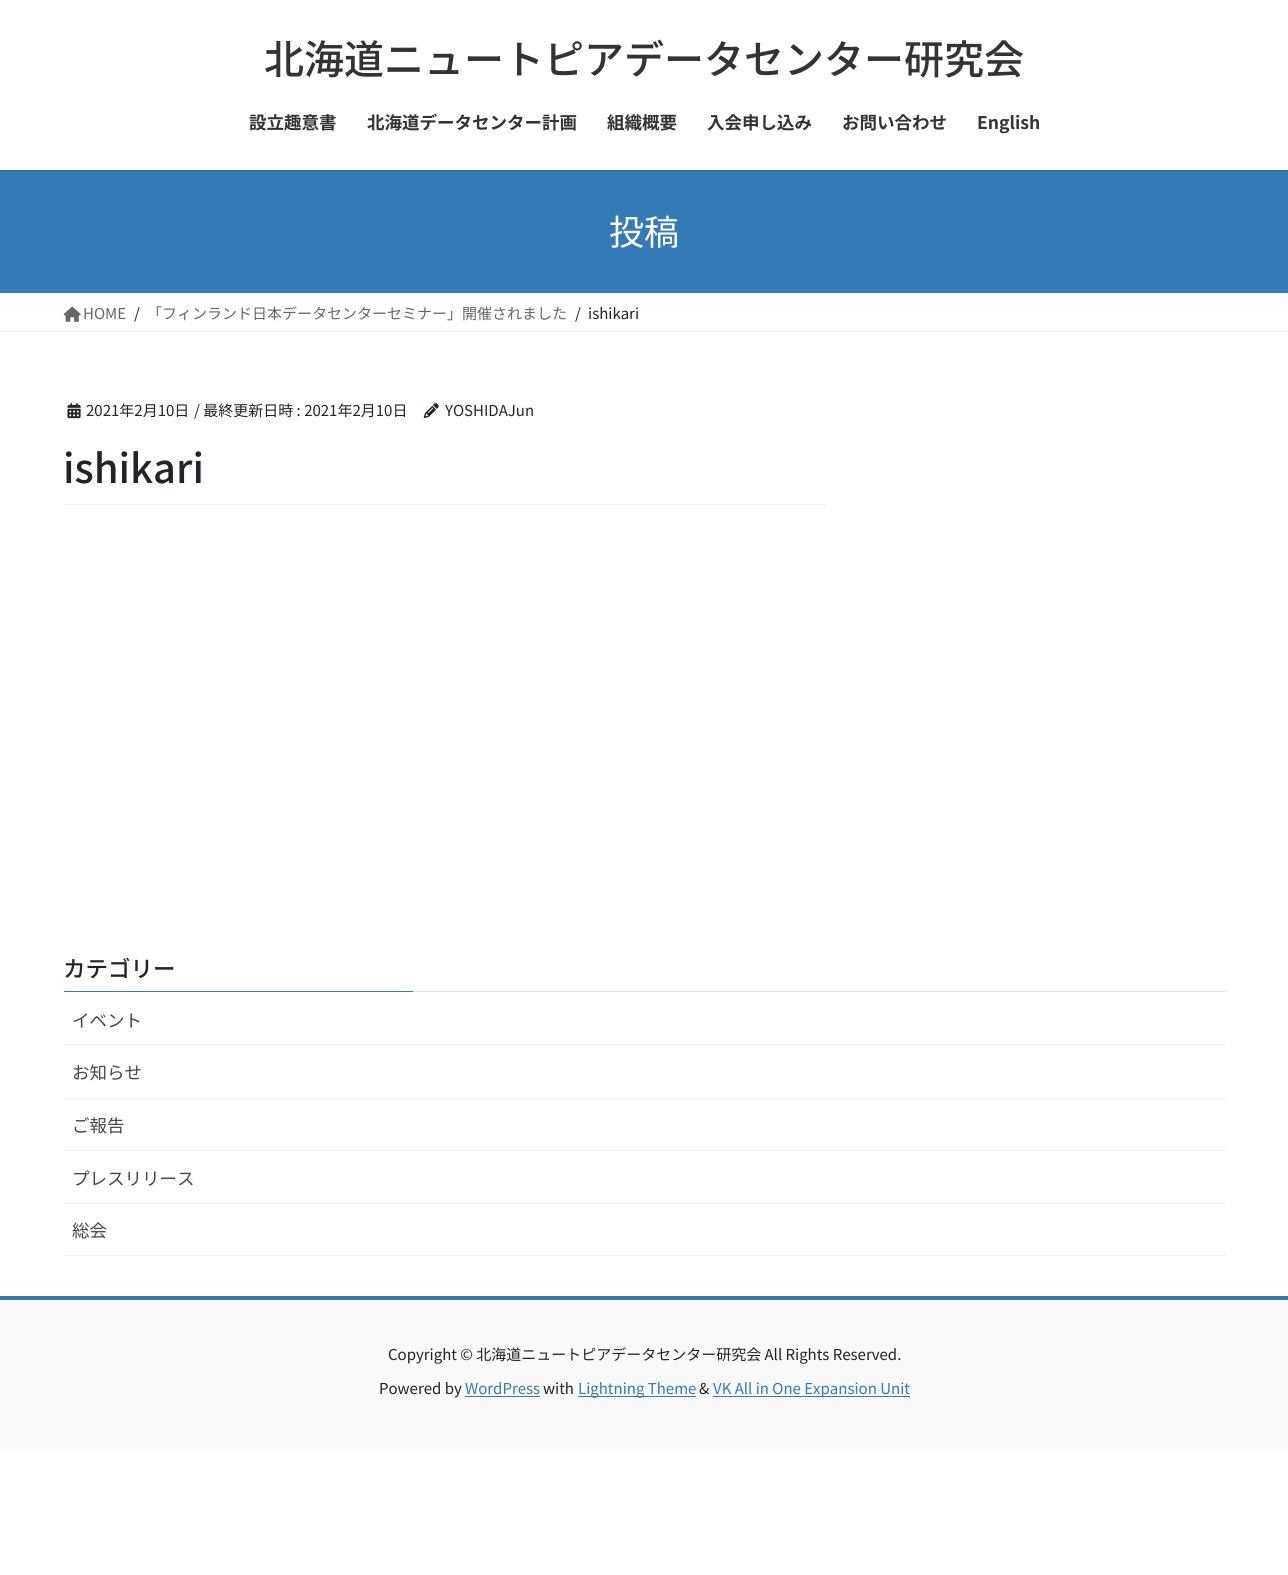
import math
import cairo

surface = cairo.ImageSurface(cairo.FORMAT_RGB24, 1288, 1575)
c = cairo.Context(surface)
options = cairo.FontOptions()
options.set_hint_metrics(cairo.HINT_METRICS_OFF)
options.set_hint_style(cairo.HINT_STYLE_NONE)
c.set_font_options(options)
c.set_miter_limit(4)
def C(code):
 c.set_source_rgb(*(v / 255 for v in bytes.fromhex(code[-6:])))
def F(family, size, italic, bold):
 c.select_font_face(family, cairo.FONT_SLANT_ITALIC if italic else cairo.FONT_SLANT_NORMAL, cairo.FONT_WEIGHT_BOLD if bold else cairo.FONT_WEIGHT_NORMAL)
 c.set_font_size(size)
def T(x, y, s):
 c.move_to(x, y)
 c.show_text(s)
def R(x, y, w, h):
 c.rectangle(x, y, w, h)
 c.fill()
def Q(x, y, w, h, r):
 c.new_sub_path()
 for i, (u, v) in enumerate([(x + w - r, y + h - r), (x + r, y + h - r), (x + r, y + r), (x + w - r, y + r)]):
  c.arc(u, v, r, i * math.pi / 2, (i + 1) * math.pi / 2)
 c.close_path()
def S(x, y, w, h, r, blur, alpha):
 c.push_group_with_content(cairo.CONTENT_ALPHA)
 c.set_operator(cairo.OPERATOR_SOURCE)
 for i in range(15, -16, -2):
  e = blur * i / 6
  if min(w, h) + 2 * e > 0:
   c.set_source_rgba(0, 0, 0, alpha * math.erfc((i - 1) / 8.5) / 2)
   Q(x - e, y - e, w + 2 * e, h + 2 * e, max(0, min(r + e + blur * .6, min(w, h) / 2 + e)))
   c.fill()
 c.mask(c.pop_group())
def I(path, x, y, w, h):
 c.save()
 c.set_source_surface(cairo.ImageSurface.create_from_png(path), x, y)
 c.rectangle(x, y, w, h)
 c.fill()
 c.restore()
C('ffffff')
c.paint()
C('337ab7')
R(0,170,1288,123)
c.save()
c.rectangle(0,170,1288,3)
c.clip()
C('000000')
S(0,1,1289,170,0,2,.1)
c.restore()
F('Noto Sans JP Medium',40,0,0)
C('333333')
T(264,74,'北海道ニュートピアデータセンター研究会')
F('Noto Sans JP',17.5,0,1)
T(249,129,'設立趣意書')
T(367,129,'北海道データセンター計画')
T(607,129,'組織概要')
T(707,129,'入会申し込み')
T(842,129,'お問い合わせ')
T(977,129,'English')
F('Noto Sans JP',35,0,0)
C('ffffff')
T(609,245,'投稿')
C('f2f2f2')
R(0,331,1288,1)
I('1.png',63,306,18,16)
F('Noto Sans JP',15,0,0)
C('666666')
T(83,319,'HOME')
C('212529')
T(134,319,'/')
C('666666')
T(147,319,'「フィンランド日本データセンターセミナー」開催されました')
C('212529')
T(575,319,'/')
T(588,319,'ishikari')
C('f2f2f2')
R(64,504,762,1)
I('2.png',67,403,14,16)
C('212529')
T(86,416,'2021年2月10日')
T(194,416,'/ 最終更新日時 : 2021年2月10日')
I('3.png',423,403,16,16)
T(445,416,'YOSHIDAJun')
F('Noto Sans JP Medium',40,0,0)
T(63,483,'ishikari')
C('e6e6e6')
R(413,991,813,1)
F('Noto Sans JP Medium',22.5,0,0)
C('212529')
T(63,977,'カテゴリー')
C('337ab7')
R(64,991,349,1)
C('f2f2f2')
R(64,1044,1162,1)
F('Noto Sans JP',17.5,0,0)
C('464646')
T(72,1027,'イベント')
C('f2f2f2')
R(64,1098,1162,1)
C('464646')
T(72,1079,'お知らせ')
C('f2f2f2')
R(64,1150,1162,1)
C('464646')
T(72,1132,'ご報告')
C('f2f2f2')
R(64,1203,1162,1)
C('464646')
T(72,1185,'プレスリリース')
C('f2f2f2')
R(64,1255,1162,1)
C('464646')
T(72,1237,'総会')
C('f9f9f9')
R(0,1300,1288,149)
C('337ab7')
R(0,1296,1288,4)
F('Noto Sans JP',15,0,0)
C('212529')
T(388,1360,'Copyright © 北海道ニュートピアデータセンター研究会 All Rights Reserved.')
T(379,1394,'Powered by')
C('337ab7')
T(465,1394,'WordPress')
R(465,1396,75,1)
C('212529')
T(543,1394,'with')
C('337ab7')
R(578,1396,118,1)
T(578,1394,'Lightning Theme')
C('212529')
T(699,1394,'&')
C('337ab7')
R(713,1396,197,1)
T(713,1394,'VK All in One Expansion Unit')
surface.write_to_png('o.png')
